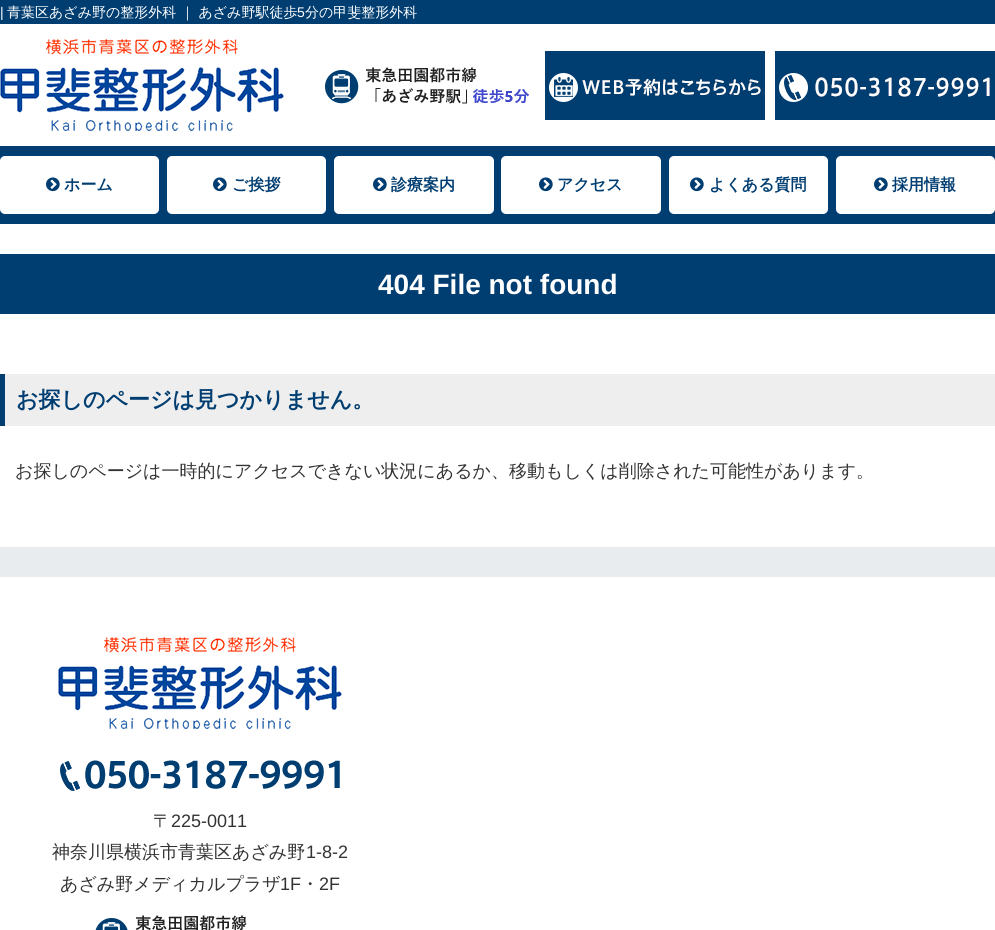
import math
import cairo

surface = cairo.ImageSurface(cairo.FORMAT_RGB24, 995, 930)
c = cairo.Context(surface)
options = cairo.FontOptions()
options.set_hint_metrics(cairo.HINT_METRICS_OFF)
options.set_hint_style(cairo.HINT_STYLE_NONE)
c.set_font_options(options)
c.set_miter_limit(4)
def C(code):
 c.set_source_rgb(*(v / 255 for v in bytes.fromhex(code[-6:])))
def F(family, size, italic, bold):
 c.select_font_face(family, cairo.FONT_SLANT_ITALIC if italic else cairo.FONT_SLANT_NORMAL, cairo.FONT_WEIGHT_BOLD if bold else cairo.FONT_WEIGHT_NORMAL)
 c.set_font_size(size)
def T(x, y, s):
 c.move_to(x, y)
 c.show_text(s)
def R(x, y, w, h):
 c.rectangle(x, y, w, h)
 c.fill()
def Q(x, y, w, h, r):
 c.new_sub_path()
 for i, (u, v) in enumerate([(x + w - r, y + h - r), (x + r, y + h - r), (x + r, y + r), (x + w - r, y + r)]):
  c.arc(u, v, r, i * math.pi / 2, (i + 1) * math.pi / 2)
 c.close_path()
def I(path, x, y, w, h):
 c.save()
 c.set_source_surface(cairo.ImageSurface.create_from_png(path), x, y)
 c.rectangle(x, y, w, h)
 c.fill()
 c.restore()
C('ffffff')
c.paint()
C('003d71')
R(0,0,995,24)
F('Liberation Sans',14,0,0)
C('ffffff')
T(0,17,'|')
F('WenQuanYi Zen Hei Medium',14,0,0)
T(7,17,'青葉区あざみ野の整形外科 ｜ あざみ野駅徒歩')
F('Liberation Sans',14,0,0)
T(297,17,'5')
F('WenQuanYi Zen Hei Medium',14,0,0)
T(305,17,'分の甲斐整形外科')
I('1.png',0,39,284,92)
I('2.png',325,67,204,37)
I('3.png',545,51,220,69)
I('4.png',775,51,220,69)
C('003d71')
R(0,146,995,78)
C('ffffff')
Q(0,156,159,58,5)
c.fill()
I('5.png',46,177,14,15)
F('WenQuanYi Zen Hei',16,0,1)
C('003d71')
T(64,190,'ホーム')
C('ffffff')
Q(167,156,159,58,5)
c.fill()
I('5.png',213,177,14,15)
C('003d71')
T(232,190,'ご挨拶')
C('ffffff')
Q(334,156,160,58,5)
c.fill()
I('5.png',373,177,14,15)
C('003d71')
T(391,190,'診療案内')
C('ffffff')
Q(501,156,160,58,5)
c.fill()
I('5.png',539,177,14,15)
C('003d71')
T(557,190,'アクセス')
C('ffffff')
Q(669,156,159,58,5)
c.fill()
I('5.png',690,177,14,15)
C('003d71')
T(709,190,'よくある質問')
C('ffffff')
Q(836,156,159,58,5)
c.fill()
I('5.png',874,177,14,15)
C('003d71')
T(892,190,'採用情報')
R(0,254,995,60)
F('Liberation Sans',28,0,1)
C('ffffff')
T(378,294,'404 File not found')
C('eeeeee')
R(5,374,990,52)
C('003d71')
R(0,374,5,52)
F('WenQuanYi Zen Hei',22,0,1)
T(16,407,'お探しのページは見つかりません。')
F('WenQuanYi Zen Hei Medium',18,0,0)
C('333333')
T(15,477,'お探しのページは一時的にアクセスできない状況にあるか、移動もしくは削除された可能性があります。')
C('e9ecef')
R(0,547,995,30)
I('1.png',58,637,284,92)
I('6.png',60,760,280,31)
C('333333')
T(153,827,'〒')
F('Liberation Sans',18,0,0)
T(171,827,'225-0011')
F('WenQuanYi Zen Hei Medium',18,0,0)
T(52,858,'神奈川県横浜市青葉区あざみ野')
F('Liberation Sans',18,0,0)
T(306,858,'1-8-2')
F('WenQuanYi Zen Hei Medium',18,0,0)
T(60,890,'あざみ野メディカルプラザ')
F('Liberation Sans',18,0,0)
T(280,890,'1F')
F('WenQuanYi Zen Hei Medium',18,0,0)
T(301,890,'・')
F('Liberation Sans',18,0,0)
T(319,890,'2F')
I('7.png',95,915,152,15)
surface.write_to_png('o.png')
